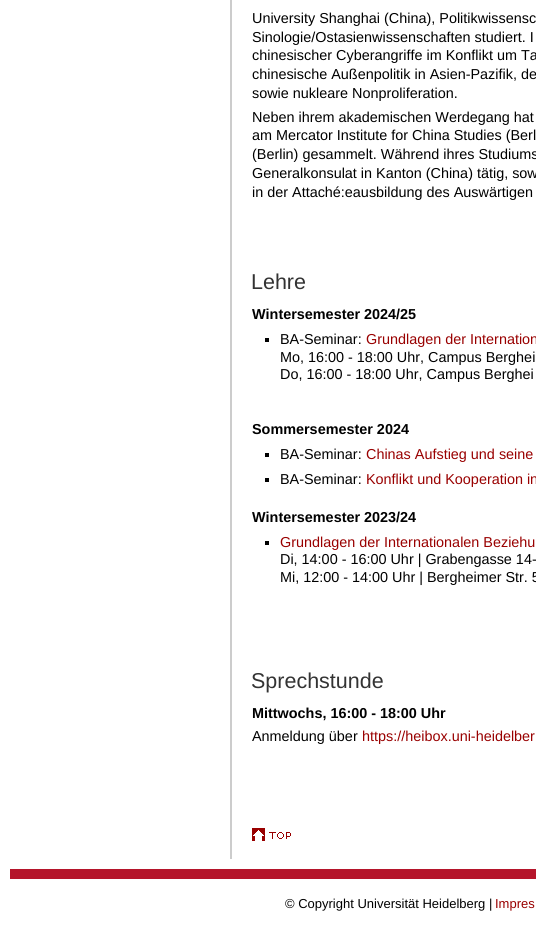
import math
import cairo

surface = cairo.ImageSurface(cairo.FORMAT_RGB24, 536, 927)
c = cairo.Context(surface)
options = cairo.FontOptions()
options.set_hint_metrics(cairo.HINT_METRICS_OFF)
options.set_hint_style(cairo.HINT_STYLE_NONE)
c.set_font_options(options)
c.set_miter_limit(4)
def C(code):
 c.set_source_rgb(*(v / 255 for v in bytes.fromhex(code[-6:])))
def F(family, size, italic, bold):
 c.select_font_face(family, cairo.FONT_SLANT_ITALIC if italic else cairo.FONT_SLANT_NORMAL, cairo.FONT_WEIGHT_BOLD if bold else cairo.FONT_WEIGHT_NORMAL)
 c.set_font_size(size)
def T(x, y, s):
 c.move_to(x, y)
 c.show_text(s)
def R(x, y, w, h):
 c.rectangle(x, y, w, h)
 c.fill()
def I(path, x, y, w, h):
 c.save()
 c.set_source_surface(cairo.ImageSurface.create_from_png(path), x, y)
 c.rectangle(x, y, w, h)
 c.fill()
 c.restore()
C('ffffff')
c.paint()
C('cccccc')
R(230,0,2,859)
F('Liberation Sans',14.4,0,0)
C('000000')
T(252,23,'University Shanghai (China), Politikwissensc')
T(252,42,'Sinologie/Ostasienwissenschaften studiert. I')
T(252,60,'chinesischer Cyberangriffe im Konflikt um Ta')
T(252,79,'chinesische Außenpolitik in Asien-Pazifik, de')
T(252,98,'sowie nukleare Nonproliferation.')
T(252,122,'Neben ihrem akademischen Werdegang hat')
T(252,140,'am Mercator Institute for China Studies (Berl')
T(252,159,'(Berlin) gesammelt. Während ihres Studiums')
T(252,178,'Generalkonsulat in Kanton (China) tätig, sow')
T(252,197,'in der Attaché:eausbildung des Auswärtigen')
F('Liberation Sans',21.5,0,0)
C('333333')
T(251,289,'Lehre')
F('Liberation Sans',14.4,0,1)
C('000000')
T(252,319,'Wintersemester 2024/25')
R(265,338,4,4)
F('Liberation Sans',14.4,0,0)
T(280,344,'BA-Seminar:')
C('990000')
T(366,344,'Grundlagen der Internation')
C('000000')
T(280,362,'Mo, 16:00 - 18:00 Uhr, Campus Berghei')
T(280,379,'Do, 16:00 - 18:00 Uhr, Campus Berghei')
F('Liberation Sans',14.4,0,1)
T(252,434,'Sommersemester 2024')
R(265,453,4,4)
F('Liberation Sans',14.4,0,0)
T(280,459,'BA-Seminar:')
C('990000')
T(366,459,'Chinas Aufstieg und seine')
C('000000')
R(265,478,4,4)
T(280,484,'BA-Seminar:')
C('990000')
T(366,484,'Konflikt und Kooperation in')
F('Liberation Sans',14.4,0,1)
C('000000')
T(252,522,'Wintersemester 2023/24')
R(265,541,4,4)
F('Liberation Sans',14.4,0,0)
C('990000')
T(280,547,'Grundlagen der Internationalen Beziehu')
C('000000')
T(280,564,'Di, 14:00 - 16:00 Uhr | Grabengasse 14-')
T(280,582,'Mi, 12:00 - 14:00 Uhr | Bergheimer Str. 5')
F('Liberation Sans',21.5,0,0)
C('333333')
T(251,688,'Sprechstunde')
F('Liberation Sans',14.4,0,1)
C('000000')
T(252,718,'Mittwochs, 16:00 - 18:00 Uhr')
F('Liberation Sans',14.4,0,0)
T(252,741,'Anmeldung über')
C('990000')
T(362,741,'https://heibox.uni-heidelber')
I('1.png',252,828,39,13)
C('b5152b')
R(10,869,526,10)
F('Liberation Sans',13,0,0)
C('000000')
T(285,908,'© Copyright Universität Heidelberg |')
C('990000')
T(495,908,'Impres')
surface.write_to_png('o.png')
